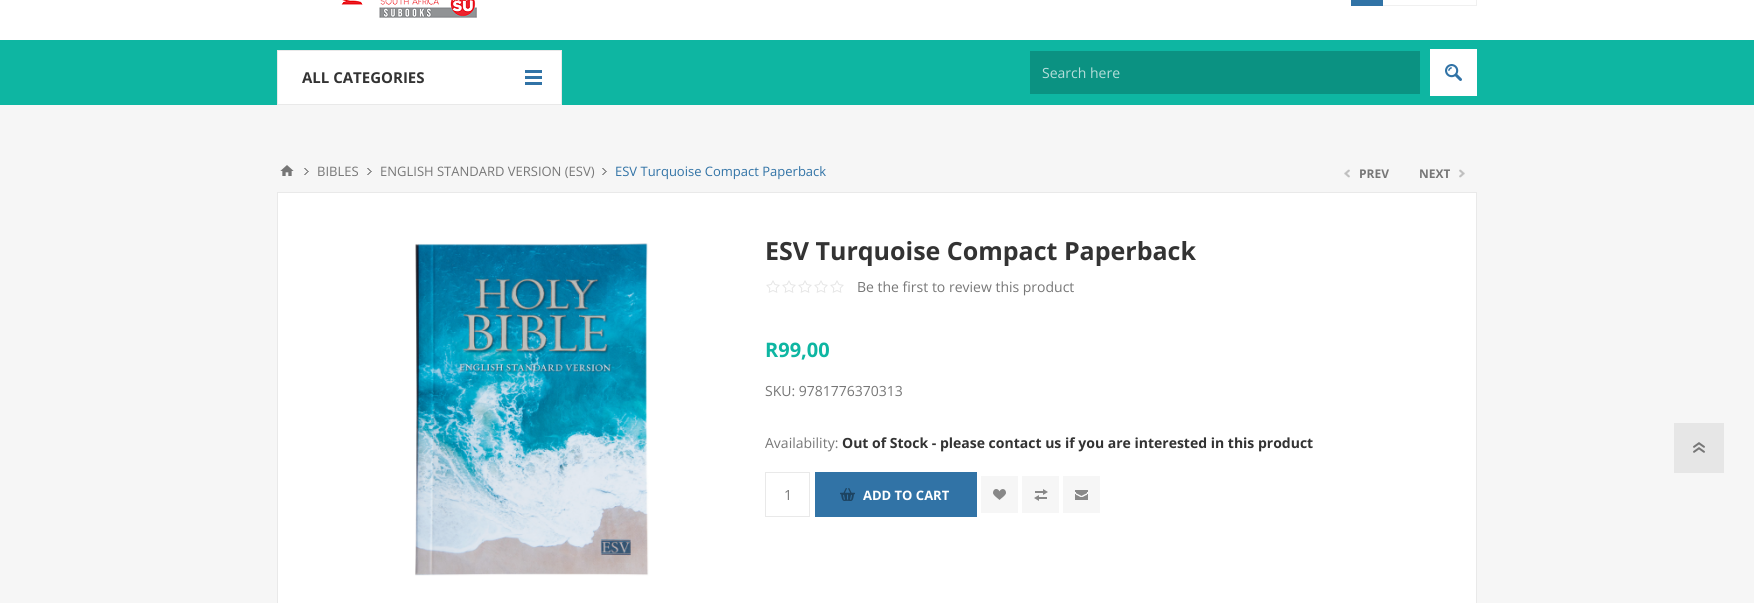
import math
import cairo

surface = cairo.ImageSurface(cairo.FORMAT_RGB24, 1754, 603)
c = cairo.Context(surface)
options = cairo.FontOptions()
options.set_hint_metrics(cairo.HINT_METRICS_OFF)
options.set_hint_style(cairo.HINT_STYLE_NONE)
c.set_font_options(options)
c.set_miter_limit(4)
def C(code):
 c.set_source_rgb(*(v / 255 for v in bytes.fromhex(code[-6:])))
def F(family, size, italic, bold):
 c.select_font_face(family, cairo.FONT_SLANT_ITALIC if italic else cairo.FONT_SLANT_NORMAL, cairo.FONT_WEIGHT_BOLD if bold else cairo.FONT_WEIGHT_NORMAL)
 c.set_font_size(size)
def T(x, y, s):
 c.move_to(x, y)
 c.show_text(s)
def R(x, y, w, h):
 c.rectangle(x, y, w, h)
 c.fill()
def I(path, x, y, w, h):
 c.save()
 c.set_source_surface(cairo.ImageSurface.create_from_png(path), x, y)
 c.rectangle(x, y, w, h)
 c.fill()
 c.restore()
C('f6f6f6')
c.paint()
C('ffffff')
R(0,0,1754,40)
I('1.png',331,0,149,20)
c.rectangle(1382.5,-.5,94,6)
C('f0f0f0')
c.set_line_width(1)
c.stroke()
C('3173a6')
R(1351,0,32,6)
C('0eb6a2')
R(0,40,1754,65)
C('ffffff')
c.rectangle(277.5,50.5,284,54)
c.fill_preserve()
C('e9e9e9')
c.stroke()
F('Open Sans',15,0,1)
C('333333')
T(302,83,'ALL CATEGORIES')
C('3173a6')
R(525,70,17,15)
I('2.png',525,73,17,9)
C('0b9282')
R(1030,51,390,43)
F('Open Sans',14,0,0)
C('b6deda')
T(1042,78,'Search here')
C('3173a6')
R(1445,64,17,17)
I('3.png',1430,49,47,47)
I('4.png',280,165,14,11)
I('5.png',304,168,5,7)
F('Open Sans',13,0,0)
C('777777')
T(317,176,'BIBLES')
I('5.png',367,168,5,7)
T(380,176,'ENGLISH STANDARD VERSION (ESV)')
I('5.png',602,168,5,7)
C('3173a6')
T(615,176,'ESV Turquoise Compact Paperback')
I('6.png',1344,169,6,9)
F('Open Sans',12,0,1)
C('777777')
T(1359,178,'PREV')
T(1419,178,'NEXT')
I('7.png',1459,169,6,9)
C('ffffff')
c.rectangle(277.5,192.5,1199,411)
c.fill_preserve()
C('e9e9e9')
c.stroke()
I('8.png',415,243,234,333)
F('Open Sans',25,0,1)
C('333333')
T(765,260,'ESV Turquoise Compact Paperback')
I('9.png',766,280,78,13)
F('Open Sans',14,0,0)
C('777777')
T(857,292,'Be the first to review this product')
F('Open Sans',20,0,1)
C('0eb6a2')
T(765,357,'R99,00')
F('Open Sans',14,0,0)
C('777777')
T(765,396,'SKU: 9781776370313')
T(765,448,'Availability:')
F('Open Sans',14,0,1)
C('333333')
T(842,448,'Out of Stock - please contact us if you are interested in this product')
c.rectangle(765.5,472.5,44,44)
C('e9e9e9')
c.stroke()
F('Open Sans',14,0,0)
C('777777')
T(784,500,'1')
C('3173a6')
R(815,472,162,45)
I('10.png',840,488,15,13)
F('Open Sans',13,0,1)
C('ffffff')
T(863,500,'ADD TO CART')
C('888888')
R(993,489,13,11)
I('11.png',981,476,37,37)
R(1034,489,14,12)
I('12.png',1022,476,37,37)
R(1075,490,13,10)
I('13.png',1063,476,37,37)
C('e6e6e6')
R(1674,423,50,50)
I('14.png',1693,442,12,11)
surface.write_to_png('o.png')
